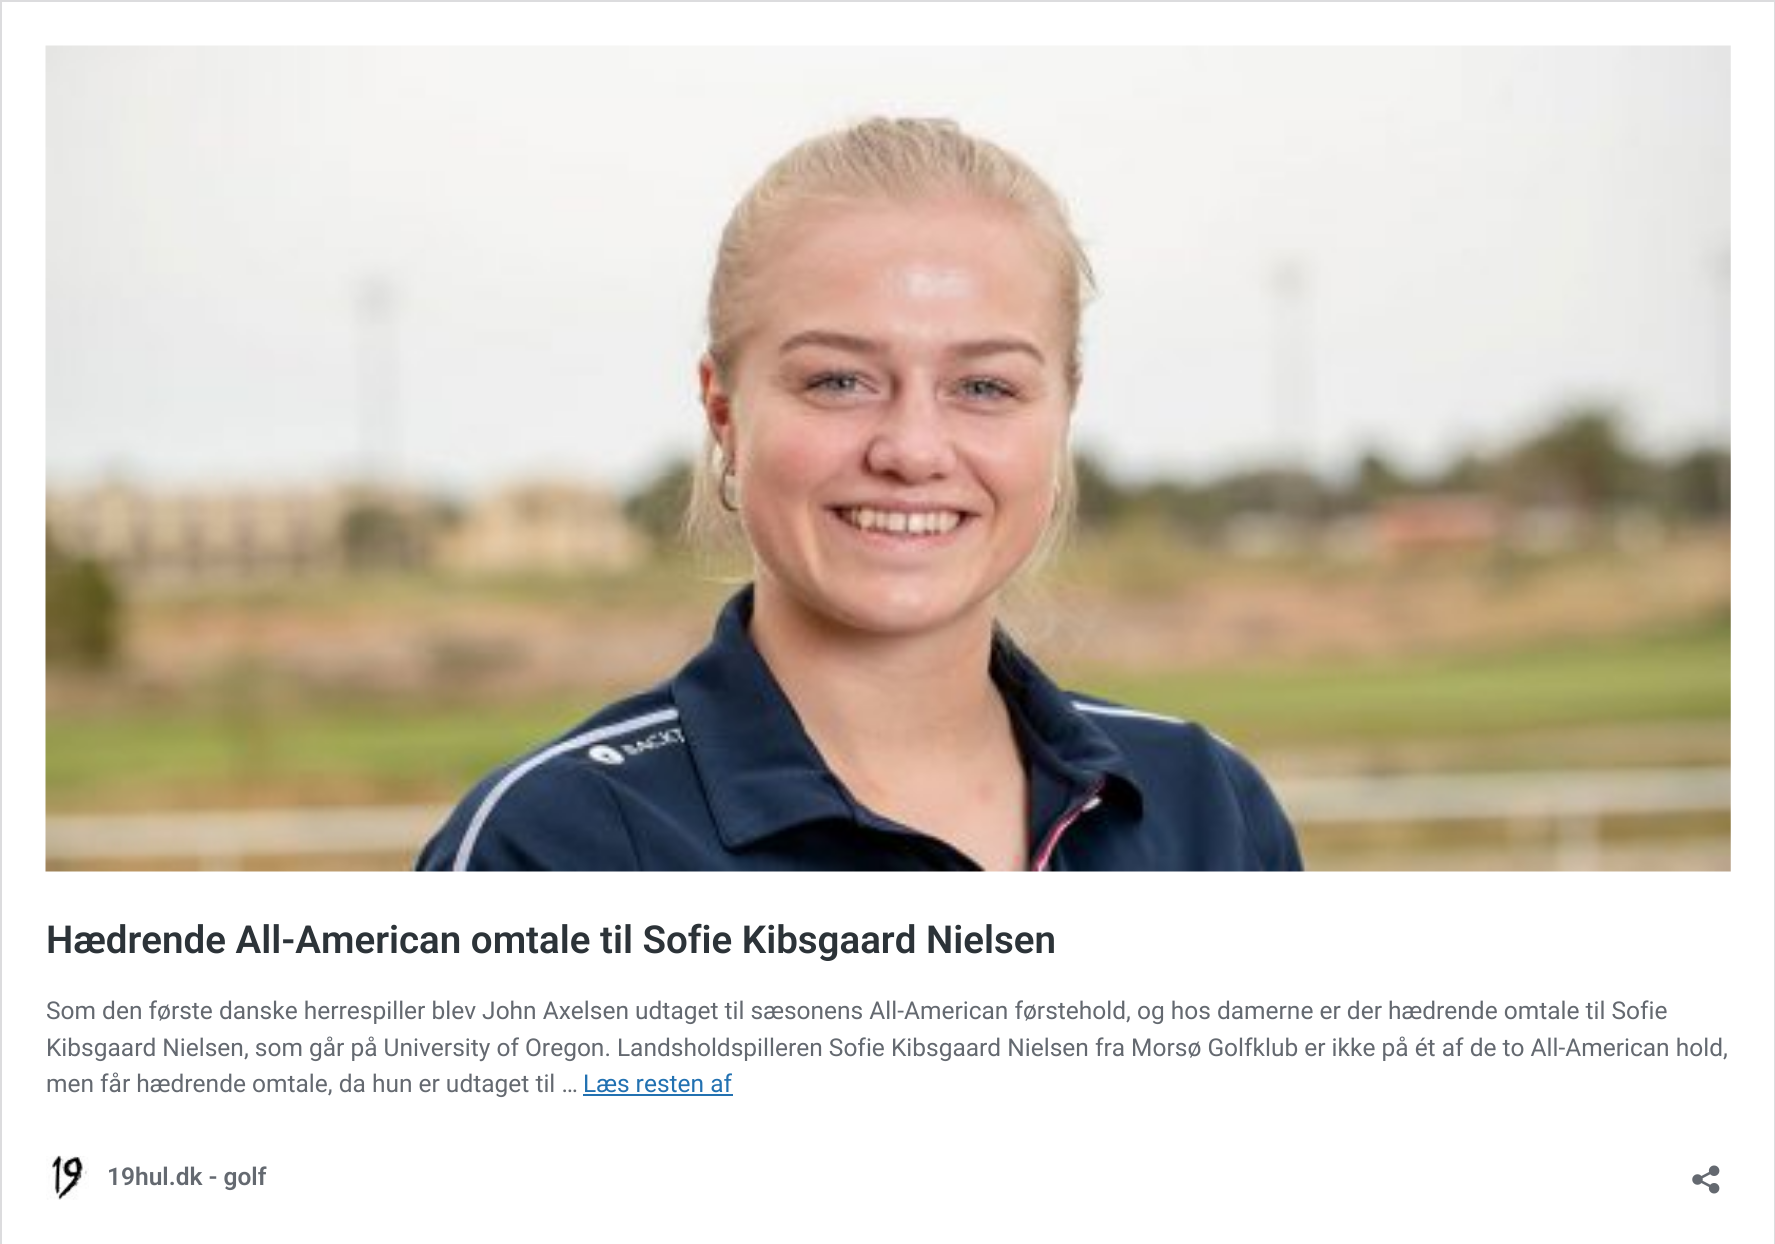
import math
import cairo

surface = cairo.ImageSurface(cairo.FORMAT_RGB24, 1775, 1244)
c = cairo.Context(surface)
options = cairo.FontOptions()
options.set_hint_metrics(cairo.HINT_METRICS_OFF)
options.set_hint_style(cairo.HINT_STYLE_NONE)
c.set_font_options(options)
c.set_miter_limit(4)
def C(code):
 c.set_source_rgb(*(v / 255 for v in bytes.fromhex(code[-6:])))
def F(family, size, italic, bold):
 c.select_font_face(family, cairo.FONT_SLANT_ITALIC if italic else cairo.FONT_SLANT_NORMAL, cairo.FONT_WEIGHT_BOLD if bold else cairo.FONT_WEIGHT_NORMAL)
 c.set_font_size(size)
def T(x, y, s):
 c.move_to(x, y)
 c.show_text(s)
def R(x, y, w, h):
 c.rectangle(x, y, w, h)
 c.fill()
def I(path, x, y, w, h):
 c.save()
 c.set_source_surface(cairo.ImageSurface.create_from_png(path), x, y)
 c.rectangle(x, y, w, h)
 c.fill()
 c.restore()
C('ffffff')
c.paint()
c.rectangle(1,1,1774,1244)
C('dcdcde')
c.stroke()
I('1.png',45,45,1686,827)
F('Roboto SemiBold',38.5,0,0)
C('2c3338')
T(46,953,'Hædrende All-American omtale til Sofie Kibsgaard Nielsen')
F('Roboto',24.5,0,0)
C('646970')
T(46,1019,'Som den første danske herrespiller blev John Axelsen udtaget til sæsonens All-American førstehold, og hos damerne er der hædrende omtale til Sofie')
T(46,1056,'Kibsgaard Nielsen, som går på University of Oregon. Landsholdspilleren Sofie Kibsgaard Nielsen fra Morsø Golfklub er ikke på ét af de to All-American hold,')
T(46,1092,'men får hædrende omtale, da hun er udtaget til …')
C('2271b1')
T(583,1092,'Læs resten af')
R(583,1094,150,2)
I('2.png',46,1155,43,45)
F('Roboto SemiBold',24.5,0,0)
C('646970')
T(107,1185,'19hul.dk - golf')
I('3.png',1692,1165,28,29)
surface.write_to_png('o.png')
